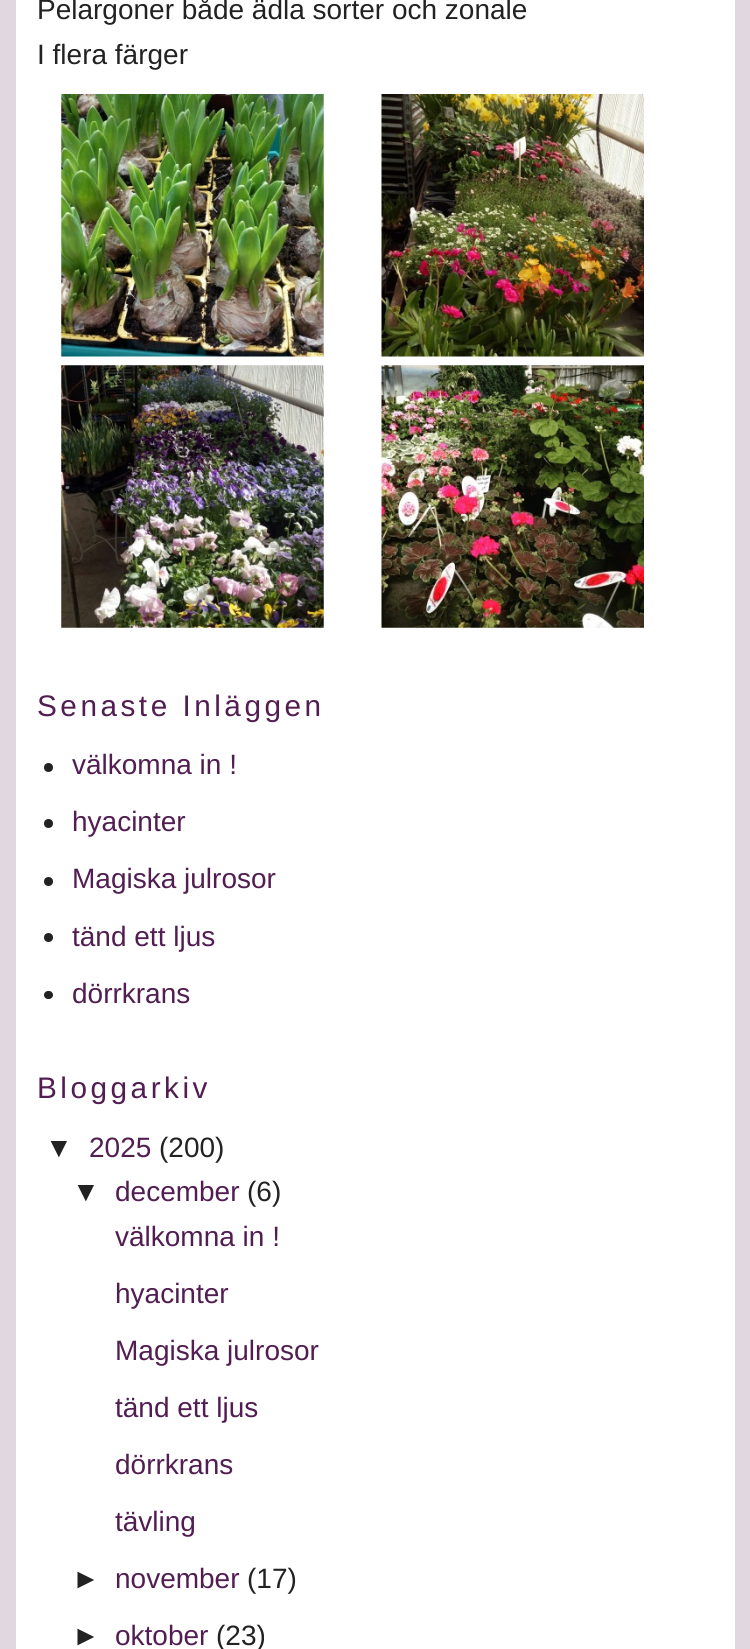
import math
import cairo

surface = cairo.ImageSurface(cairo.FORMAT_RGB24, 750, 1649)
c = cairo.Context(surface)
options = cairo.FontOptions()
options.set_hint_metrics(cairo.HINT_METRICS_OFF)
options.set_hint_style(cairo.HINT_STYLE_NONE)
c.set_font_options(options)
c.set_miter_limit(4)
def C(code):
 c.set_source_rgb(*(v / 255 for v in bytes.fromhex(code[-6:])))
def F(family, size, italic, bold):
 c.select_font_face(family, cairo.FONT_SLANT_ITALIC if italic else cairo.FONT_SLANT_NORMAL, cairo.FONT_WEIGHT_BOLD if bold else cairo.FONT_WEIGHT_NORMAL)
 c.set_font_size(size)
def T(x, y, s):
 c.move_to(x, y)
 c.show_text(s)
def L(x, y, s, letter, word):
 c.move_to(x, y)
 for ch in s:
  c.show_text(ch)
  c.rel_move_to(letter + word * (ch == ' '), 0)
def R(x, y, w, h):
 c.rectangle(x, y, w, h)
 c.fill()
def Q(x, y, w, h, r):
 c.new_sub_path()
 for i, (u, v) in enumerate([(x + w - r, y + h - r), (x + r, y + h - r), (x + r, y + r), (x + w - r, y + r)]):
  c.arc(u, v, r, i * math.pi / 2, (i + 1) * math.pi / 2)
 c.close_path()
def I(path, x, y, w, h):
 c.save()
 c.set_source_surface(cairo.ImageSurface.create_from_png(path), x, y)
 c.rectangle(x, y, w, h)
 c.fill()
 c.restore()
C('e0d7e0')
c.paint()
C('ffffff')
R(16,0,719,1649)
F('Liberation Sans',28,0,0)
C('222222')
T(37,19,'Pelargoner både ädla sorter och zonale')
T(37,64,'I flera färger')
I('1.png',61,94,263,263)
I('2.png',381,94,263,263)
I('3.png',61,365,263,263)
I('4.png',381,365,263,263)
F('Liberation Sans',29.75,0,0)
C('521e52')
L(37,716,'Senaste Inläggen',3.5,0)
C('222222')
c.new_path()
c.arc(48.5,767.5,4.5,0,2 * math.pi)
c.fill()
F('Liberation Sans',28,0,0)
C('521e52')
T(72,774,'välkomna in !')
C('222222')
c.new_path()
c.arc(48.5,823.5,4.5,0,2 * math.pi)
c.fill()
C('521e52')
T(72,831,'hyacinter')
C('222222')
c.new_path()
c.arc(48.5,881.5,4.5,0,2 * math.pi)
c.fill()
C('521e52')
T(72,888,'Magiska julrosor')
C('222222')
c.new_path()
c.arc(48.5,937.5,4.5,0,2 * math.pi)
c.fill()
C('521e52')
T(72,946,'tänd ett ljus')
C('222222')
Q(44,991,9,8,4)
c.fill()
C('521e52')
T(72,1003,'dörrkrans')
F('Liberation Sans',29.75,0,0)
L(37,1098,'Bloggarkiv',3.5,0)
F('Liberation Sans',28,0,0)
C('222222')
T(45,1157,'▼')
C('521e52')
T(89,1157,'2025')
C('222222')
T(159,1157,'(200)')
T(72,1201,'▼')
C('521e52')
T(115,1201,'december')
C('222222')
T(247,1201,'(6)')
C('521e52')
T(115,1246,'välkomna in !')
T(115,1303,'hyacinter')
T(115,1360,'Magiska julrosor')
T(115,1417,'tänd ett ljus')
T(115,1474,'dörrkrans')
T(115,1531,'tävling')
C('222222')
T(72,1588,'►')
C('521e52')
T(115,1588,'november')
C('222222')
T(247,1588,'(17)')
T(72,1645,'►')
C('521e52')
T(115,1645,'oktober')
C('222222')
T(216,1645,'(23)')
surface.write_to_png('o.png')
